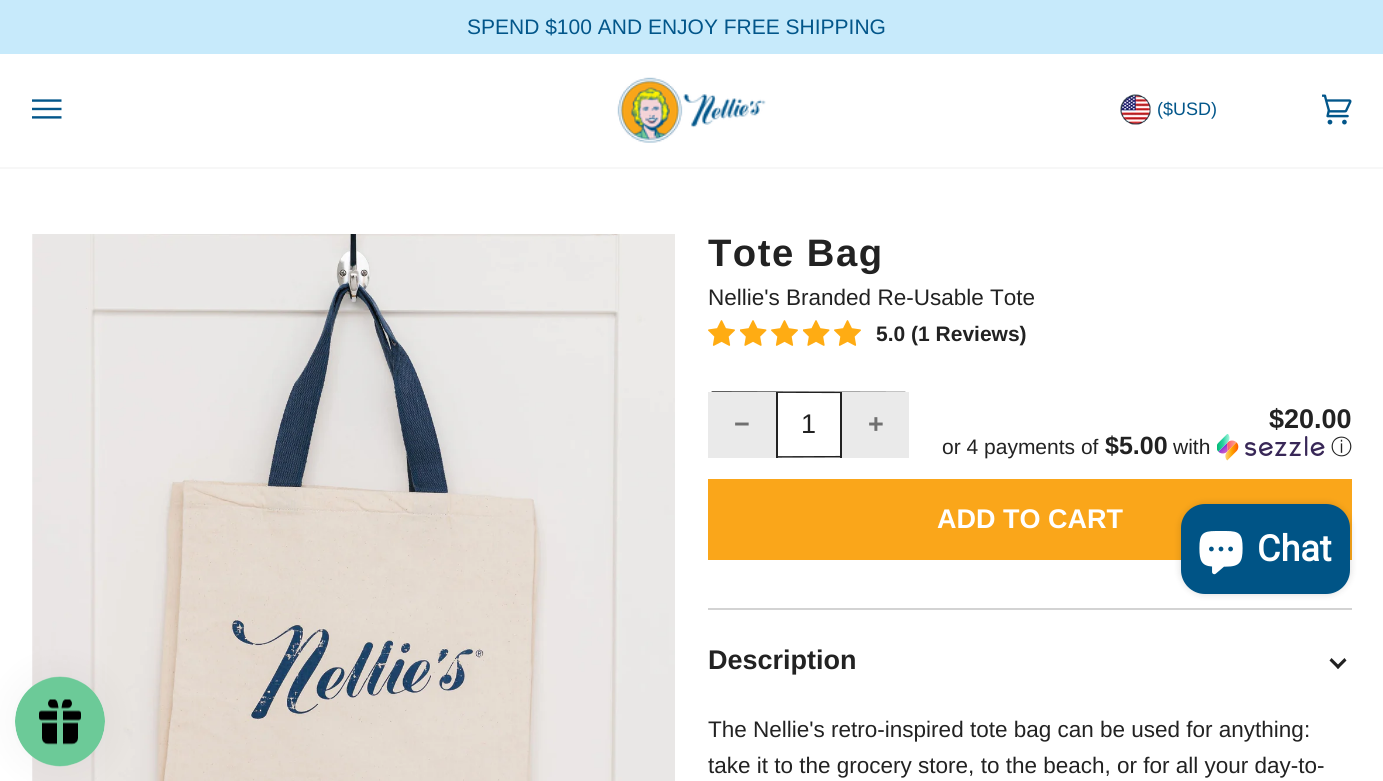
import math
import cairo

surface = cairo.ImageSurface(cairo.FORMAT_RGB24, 1383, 781)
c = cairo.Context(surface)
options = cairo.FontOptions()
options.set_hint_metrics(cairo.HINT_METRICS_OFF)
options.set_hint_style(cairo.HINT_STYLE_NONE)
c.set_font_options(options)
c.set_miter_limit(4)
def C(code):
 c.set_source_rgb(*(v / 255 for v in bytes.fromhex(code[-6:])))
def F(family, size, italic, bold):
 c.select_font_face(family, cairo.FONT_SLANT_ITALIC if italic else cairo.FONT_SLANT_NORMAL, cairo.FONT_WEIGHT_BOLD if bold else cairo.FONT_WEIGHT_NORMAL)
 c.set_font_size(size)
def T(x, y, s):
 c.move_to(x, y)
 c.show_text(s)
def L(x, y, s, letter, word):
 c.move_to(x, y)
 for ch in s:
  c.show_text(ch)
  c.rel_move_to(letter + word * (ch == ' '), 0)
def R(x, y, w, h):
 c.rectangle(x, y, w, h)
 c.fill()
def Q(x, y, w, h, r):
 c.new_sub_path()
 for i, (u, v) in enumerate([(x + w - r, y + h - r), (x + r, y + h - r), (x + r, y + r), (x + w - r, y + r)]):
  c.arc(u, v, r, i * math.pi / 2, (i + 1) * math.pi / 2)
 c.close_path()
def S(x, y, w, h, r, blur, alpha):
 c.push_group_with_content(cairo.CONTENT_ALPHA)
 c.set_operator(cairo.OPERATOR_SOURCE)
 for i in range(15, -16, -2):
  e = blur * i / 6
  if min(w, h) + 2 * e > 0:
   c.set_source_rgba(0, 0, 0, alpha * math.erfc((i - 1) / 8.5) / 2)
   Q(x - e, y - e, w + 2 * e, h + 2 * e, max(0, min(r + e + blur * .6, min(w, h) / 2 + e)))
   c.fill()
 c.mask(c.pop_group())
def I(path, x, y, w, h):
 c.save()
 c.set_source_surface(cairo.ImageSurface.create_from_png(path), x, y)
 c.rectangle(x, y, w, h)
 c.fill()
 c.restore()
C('ffffff')
c.paint()
C('c7eafb')
R(0,0,1383,54)
F('Liberation Sans',21,0,0)
C('02568a')
T(467,34,'SPEND $100 AND ENJOY FREE SHIPPING')
C('f7f7f7')
R(0,167,1383,2)
I('1.png',32,99,30,20)
I('2.png',617,77,149,66)
I('3.png',1120,94,31,31)
F('Liberation Sans',18,0,0)
C('02568a')
T(1157,115,'($USD)')
I('4.png',1322,94,30,31)
I('5.png',32,234,643,547)
F('Liberation Sans',38.25,0,1)
C('222222')
L(708,266,'Tote Bag',1.5,0)
F('Liberation Sans',22.5,0,0)
T(708,305,'Nellie\'s Branded Re-Usable Tote')
I('6.png',708,320,27,26)
I('7.png',740,320,27,26)
I('6.png',771,320,27,26)
I('7.png',803,320,27,26)
I('6.png',834,320,27,26)
F('Liberation Sans',21,0,1)
T(876,341,'5.0 (1 Reviews)')
c.new_path()
c.move_to(710,393.5)
c.line_to(712.5,392)
c.line_to(905,392.5)
c.line_to(907,393.5)
c.set_line_width(1.5)
c.stroke()
c.new_path()
c.move_to(907,455.5)
c.line_to(905,456.5)
c.line_to(744.5,457)
c.line_to(712.5,457)
c.line_to(710,455.5)
c.stroke()
C('eaeaea')
R(708,392,68,66)
C('222222')
R(776,392,2,66)
F('Liberation Sans',27,0,1)
C('707070')
T(734,433,'−')
F('Liberation Sans',27,0,0)
C('222222')
T(801,433,'1')
C('eaeaea')
R(842,392,67,66)
C('222222')
R(840,392,2,66)
F('Liberation Sans',27,0,1)
C('707070')
T(868,433,'+')
C('222222')
T(1269,428,'$20.00')
F('Liberation Sans',21,0,0)
T(942,454,'or 4 payments of')
F('Liberation Sans',25,0,1)
T(1105,454,'$5.00')
F('Liberation Sans',21,0,0)
T(1173,454,'with')
I('8.png',1217,434,108,27)
F('WenQuanYi Zen Hei Medium',21,0,0)
T(1331,454,'ⓘ')
C('faa61a')
R(708,479,644,81)
F('Liberation Sans',27,0,1)
C('ffffff')
T(937,528,'ADD TO CART')
C('d3d3d3')
R(708,608,644,2)
C('222222')
T(708,669,'Description')
c.new_path()
c.move_to(1336,666.5)
c.line_to(1344.5,658)
c.line_to(1346.5,660.5)
c.line_to(1338,669)
c.close_path()
c.fill()
c.new_path()
c.move_to(1329.5,660.5)
c.line_to(1331.5,658)
c.line_to(1340,666.5)
c.line_to(1338,669)
c.close_path()
c.fill()
F('Liberation Sans',22.5,0,0)
T(708,737,'The Nellie\'s retro-inspired tote bag can be used for anything:')
T(708,773,'take it to the grocery store, to the beach, or for all your day-to-')
C('000000')
S(1181,504,169,90,24,4,.15)
C('005486')
Q(1181,504,169,90,24)
c.fill()
I('9.png',1199,531,44,44)
F('Roboto',36,0,1)
C('ffffff')
T(1257,561,'Chat')
C('000000')
S(15,677,90,90,45,19,.05)
I('10.png',15,676,90,91)
surface.write_to_png('o.png')
